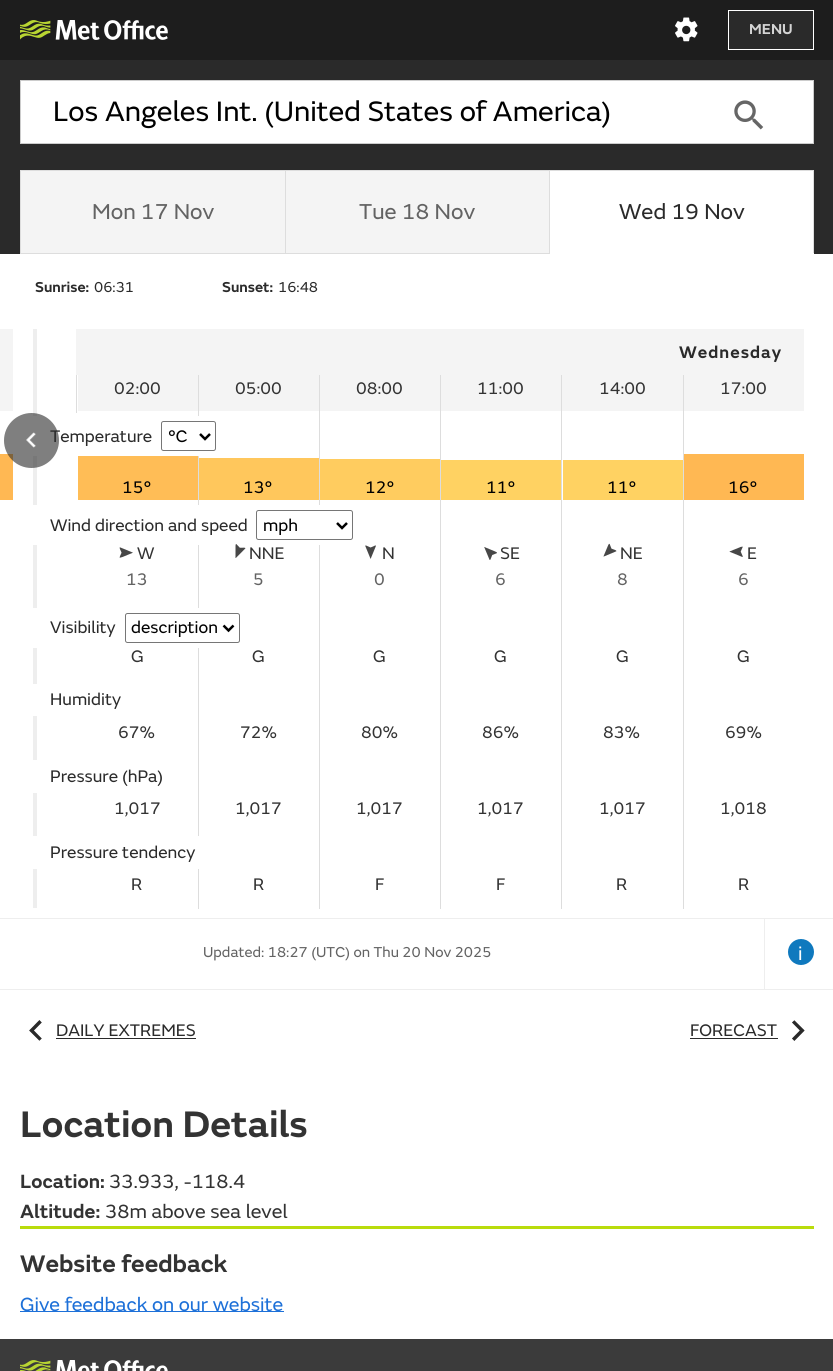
import math
import cairo

surface = cairo.ImageSurface(cairo.FORMAT_RGB24, 833, 1371)
c = cairo.Context(surface)
options = cairo.FontOptions()
options.set_hint_metrics(cairo.HINT_METRICS_OFF)
options.set_hint_style(cairo.HINT_STYLE_NONE)
c.set_font_options(options)
c.set_miter_limit(4)
def C(code):
 c.set_source_rgb(*(v / 255 for v in bytes.fromhex(code[-6:])))
def F(family, size, italic, bold):
 c.select_font_face(family, cairo.FONT_SLANT_ITALIC if italic else cairo.FONT_SLANT_NORMAL, cairo.FONT_WEIGHT_BOLD if bold else cairo.FONT_WEIGHT_NORMAL)
 c.set_font_size(size)
def T(x, y, s):
 c.move_to(x, y)
 c.show_text(s)
def L(x, y, s, letter, word):
 c.move_to(x, y)
 for ch in s:
  c.show_text(ch)
  c.rel_move_to(letter + word * (ch == ' '), 0)
def R(x, y, w, h):
 c.rectangle(x, y, w, h)
 c.fill()
def Q(x, y, w, h, r):
 c.new_sub_path()
 for i, (u, v) in enumerate([(x + w - r, y + h - r), (x + r, y + h - r), (x + r, y + r), (x + w - r, y + r)]):
  c.arc(u, v, r, i * math.pi / 2, (i + 1) * math.pi / 2)
 c.close_path()
def I(path, x, y, w, h):
 c.save()
 c.set_source_surface(cairo.ImageSurface.create_from_png(path), x, y)
 c.rectangle(x, y, w, h)
 c.fill()
 c.restore()
C('ffffff')
c.paint()
C('1d1d1d')
R(0,0,833,60)
I('1.png',20,20,148,20)
I('2.png',675,17,23,25)
C('2a2a2a')
c.rectangle(728.5,10.5,85,39)
c.fill_preserve()
C('ffffff')
c.set_line_width(1)
c.stroke()
F('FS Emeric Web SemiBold',15,0,0)
C('d4d4d4')
T(749,34,'MENU')
C('2a2a2a')
R(0,60,833,194)
c.rectangle(20.5,80.5,793,63)
C('cccccc')
c.stroke()
C('ffffff')
R(21,81,792,62)
F('FS Emeric Web',29.3,0,0)
C('000000')
T(53,121,'Los Angeles Int. (United States of America)')
I('3.png',734,100,30,30)
C('dddddd')
R(20,170,794,1)
C('f4f4f4')
R(21,171,264,82)
C('dddddd')
R(20,253,529,1)
R(20,171,1,83)
F('FS Emeric Web',22.5,0,0)
C('636363')
T(92,219,'Mon 17 Nov')
C('f4f4f4')
R(286,171,263,82)
C('dddddd')
R(285,171,1,83)
C('636363')
T(359,219,'Tue 18 Nov')
C('ffffff')
R(550,171,263,82)
C('dddddd')
R(813,171,1,83)
C('ffffff')
R(549,253,265,1)
C('dddddd')
R(549,171,1,83)
C('2a2a2a')
T(619,219,'Wed 19 Nov')
F('FS Emeric Web SemiBold',15,0,0)
T(35,292,'Sunrise:')
F('FS Emeric Web',15,0,0)
T(94,292,'06:31')
F('FS Emeric Web SemiBold',15,0,0)
T(222,292,'Sunset:')
F('FS Emeric Web',15,0,0)
T(278,292,'16:48')
C('eeeeee')
R(33,329,4,579)
C('ffb853')
R(0,454,13,46)
C('dddddd')
R(198,375,1,534)
C('ffffff')
R(33,416,166,40)
F('FS Emeric Web',17.5,0,0)
C('2a2a2a')
T(50,442,'Temperature')
c.set_source_rgba(0.165,0.165,0.165,0.6)
c.new_path()
c.arc(31.5,440.5,27.5,0,2 * math.pi)
c.fill()
I('4.png',26,432,10,16)
C('f4f4f4')
R(0,329,13,82)
R(76,329,728,46)
F('FS Emeric Web SemiBold',17.5,0,0)
C('2a2a2a')
L(679,358,'Wednesday',1,0)
C('dddddd')
R(76,375,1,38)
C('f4f4f4')
R(78,375,120,36)
F('FS Emeric Web',17.5,0,0)
C('333333')
T(114,394,'02:00')
C('f4f4f4')
R(199,375,120,36)
C('333333')
T(235,394,'05:00')
C('f4f4f4')
R(320,375,120,36)
C('333333')
T(356,394,'08:00')
C('f4f4f4')
R(441,375,120,36)
C('333333')
T(477,394,'11:00')
C('f4f4f4')
R(562,375,121,36)
C('333333')
T(599,394,'14:00')
C('f4f4f4')
R(684,375,120,36)
C('333333')
T(720,394,'17:00')
C('ffbd56')
R(78,456,120,44)
C('000000')
T(122,493,'15°')
C('ffc75c')
R(199,458,120,42)
C('000000')
T(243,493,'13°')
C('ffcc5f')
R(320,459,120,41)
C('000000')
T(365,493,'12°')
C('ffd262')
R(441,460,120,40)
C('000000')
T(486,493,'11°')
C('ffd262')
R(563,460,120,40)
C('000000')
T(607,493,'11°')
C('ffb853')
R(684,454,120,46)
C('000000')
T(728,493,'16°')
I('5.png',119,547,14,11)
C('333333')
T(137,559,'W')
C('636363')
T(126,585,'13')
C('dddddd')
R(319,375,1,534)
C('ffffff')
R(33,505,287,40)
I('6.png',235,544,11,14)
C('333333')
T(249,559,'NNE')
C('636363')
T(253,585,'5')
I('7.png',365,545,11,14)
C('333333')
T(382,559,'N')
C('636363')
T(374,585,'0')
I('8.png',484,547,13,13)
C('333333')
T(500,559,'SE')
C('636363')
T(495,585,'6')
I('9.png',603,543,14,14)
C('333333')
T(620,559,'NE')
C('636363')
T(617,585,'8')
I('10.png',729,546,14,11)
C('333333')
T(747,559,'E')
C('636363')
T(738,585,'6')
C('333333')
T(131,662,'G')
T(252,662,'G')
T(373,662,'G')
T(494,662,'G')
T(616,662,'G')
T(737,662,'G')
T(118,738,'67%')
T(240,738,'72%')
T(361,738,'80%')
T(482,738,'86%')
T(603,738,'83%')
T(725,738,'69%')
T(114,814,'1,017')
T(235,814,'1,017')
T(356,814,'1,017')
T(477,814,'1,017')
T(599,814,'1,017')
T(720,814,'1,018')
T(131,890,'R')
T(253,890,'R')
C('dddddd')
R(440,375,1,534)
C('333333')
T(375,890,'F')
C('dddddd')
R(561,375,1,534)
C('333333')
T(496,890,'F')
C('dddddd')
R(683,375,1,534)
C('333333')
T(616,890,'R')
T(738,890,'R')
Q(161.5,421.5,54,29,2)
C('767676')
c.stroke()
c.new_path()
c.move_to(200,434)
c.line_to(205,439)
c.line_to(210,434)
C('000000')
c.set_line_width(2.5)
c.stroke()
T(168,442,'°C')
C('2a2a2a')
T(50,531,'Wind direction and speed')
Q(256.5,510.5,96,29,2)
C('767676')
c.set_line_width(1)
c.stroke()
c.new_path()
c.move_to(337,523)
c.line_to(342,528)
c.line_to(347,523)
C('000000')
c.set_line_width(2.5)
c.stroke()
T(263,531,'mph')
C('ffffff')
R(33,608,166,40)
C('2a2a2a')
T(50,633,'Visibility')
Q(125.5,613.5,114,29,2)
C('767676')
c.set_line_width(1)
c.stroke()
c.new_path()
c.move_to(223.5,625.5)
c.line_to(228.5,630.5)
c.line_to(233.5,625.5)
C('000000')
c.set_line_width(2.5)
c.stroke()
T(131,633,'description')
C('ffffff')
R(33,684,4,32)
C('2a2a2a')
T(50,705,'Humidity')
C('ffffff')
R(33,760,4,33)
C('2a2a2a')
T(50,782,'Pressure (hPa)')
C('ffffff')
R(33,836,166,33)
C('2a2a2a')
T(50,858,'Pressure tendency')
C('eeeeee')
R(0,918,833,1)
R(0,989,833,1)
F('FS Emeric Web',15,0,0)
C('636363')
T(203,957,'Updated: 18:27 (UTC) on Thu 20 Nov 2025')
C('eeeeee')
R(764,919,1,70)
C('0f79be')
c.new_path()
c.arc(801,952,13,0,2 * math.pi)
c.fill()
F('FS Emeric Web',20,0,0)
C('ffffff')
T(798,960,'i')
I('11.png',29,1020,13,21)
F('FS Emeric Web',17.5,0,0)
C('2a2a2a')
T(56,1036,'DAILY EXTREMES')
R(56,1038,140,1)
T(690,1036,'FORECAST')
R(690,1038,88,1)
I('12.png',792,1020,13,21)
F('FS Emeric Web SemiBold',38.5,0,0)
C('333333')
T(20,1137,'Location Details')
F('FS Emeric Web SemiBold',20,0,0)
T(20,1188,'Location:')
F('FS Emeric Web',20,0,0)
T(109,1188,'33.933, -118.4')
F('FS Emeric Web SemiBold',20,0,0)
T(20,1218,'Altitude:')
F('FS Emeric Web',20,0,0)
T(105,1218,'38m above sea level')
C('b9dc0c')
R(20,1226,794,3)
F('FS Emeric Web SemiBold',25,0,0)
C('333333')
T(20,1272,'Website feedback')
C('1d70d8')
R(20,1311,264,1)
F('FS Emeric Web',20,0,0)
T(20,1311,'Give feedback on our website')
C('3b3b3b')
R(0,1339,833,32)
I('13.png',20,1360,148,11)
surface.write_to_png('o.png')
